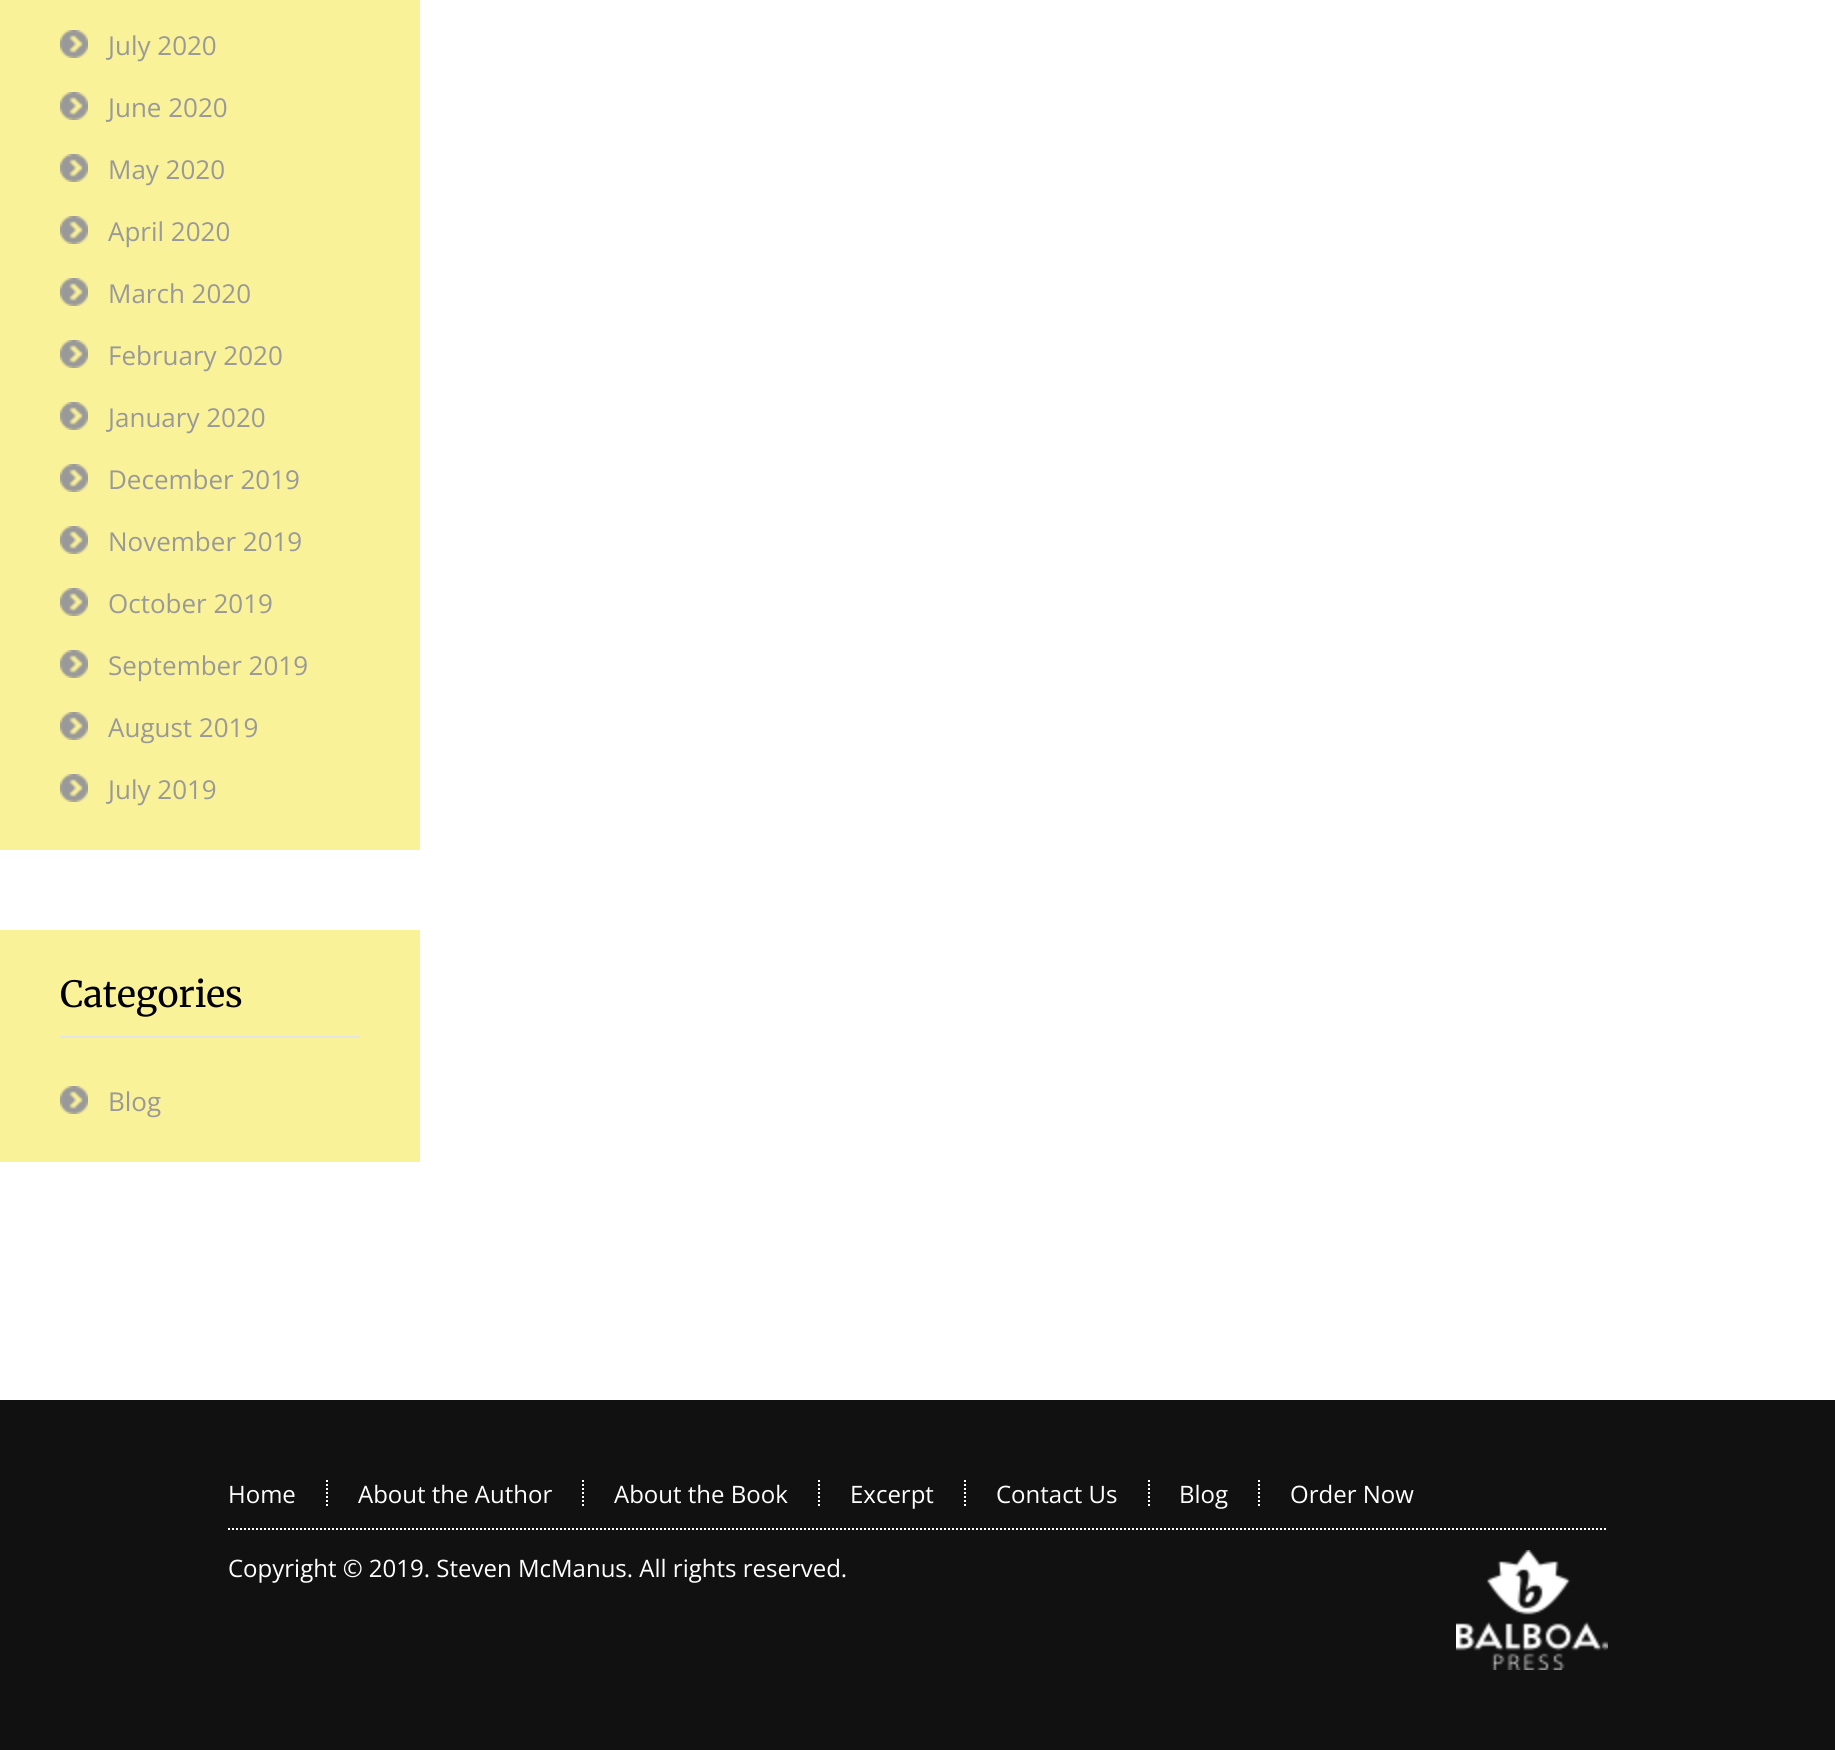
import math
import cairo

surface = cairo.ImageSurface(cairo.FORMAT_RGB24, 1835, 1750)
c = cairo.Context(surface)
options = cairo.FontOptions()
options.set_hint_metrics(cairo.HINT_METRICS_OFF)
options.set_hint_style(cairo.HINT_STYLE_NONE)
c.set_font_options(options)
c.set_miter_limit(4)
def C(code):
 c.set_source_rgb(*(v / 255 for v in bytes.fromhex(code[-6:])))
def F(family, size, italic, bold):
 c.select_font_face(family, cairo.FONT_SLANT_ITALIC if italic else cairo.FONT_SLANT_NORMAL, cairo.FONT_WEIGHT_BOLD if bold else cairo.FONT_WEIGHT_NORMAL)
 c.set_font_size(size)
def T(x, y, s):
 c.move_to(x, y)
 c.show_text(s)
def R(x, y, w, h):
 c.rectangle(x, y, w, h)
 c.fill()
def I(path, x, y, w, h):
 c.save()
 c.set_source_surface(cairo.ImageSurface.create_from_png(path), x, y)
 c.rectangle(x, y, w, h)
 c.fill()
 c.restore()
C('ffffff')
c.paint()
C('faf299')
R(0,0,420,850)
I('1.png',60,30,28,28)
F('Open Sans',26,0,0)
C('999999')
T(108,55,'July 2020')
I('1.png',60,92,28,28)
T(108,117,'June 2020')
I('1.png',60,154,28,28)
T(108,179,'May 2020')
I('1.png',60,216,28,28)
T(108,241,'April 2020')
I('1.png',60,278,28,28)
T(108,303,'March 2020')
I('1.png',60,340,28,28)
T(108,365,'February 2020')
I('1.png',60,402,28,28)
T(108,427,'January 2020')
I('1.png',60,464,28,28)
T(108,489,'December 2019')
I('1.png',60,526,28,28)
T(108,551,'November 2019')
I('1.png',60,588,28,28)
T(108,613,'October 2019')
I('1.png',60,650,28,28)
T(108,675,'September 2019')
I('1.png',60,712,28,28)
T(108,737,'August 2019')
I('1.png',60,774,28,28)
T(108,799,'July 2019')
C('faf299')
R(0,930,420,232)
C('e5e5e5')
R(60,1036,300,2)
F('Merriweather Light',36,0,0)
C('000000')
T(60,1007,'Categories')
I('1.png',60,1086,28,28)
F('Open Sans',26,0,0)
C('999999')
T(108,1111,'Blog')
C('111111')
R(0,1400,1835,350)
c.new_path()
c.move_to(327,1480)
c.line_to(327,1508)
C('ffffff')
c.set_dash([2,2])
c.stroke()
F('Open Sans',24,0,0)
T(228,1503,'Home')
c.new_path()
c.move_to(583,1480)
c.line_to(583,1508)
c.stroke()
T(358,1503,'About the Author')
c.new_path()
c.move_to(819,1480)
c.line_to(819,1508)
c.stroke()
T(614,1503,'About the Book')
c.new_path()
c.move_to(965,1480)
c.line_to(965,1508)
c.stroke()
T(850,1503,'Excerpt')
c.new_path()
c.move_to(1149,1480)
c.line_to(1149,1508)
c.stroke()
T(996,1503,'Contact Us')
c.new_path()
c.move_to(1259,1480)
c.line_to(1259,1508)
c.stroke()
T(1179,1503,'Blog')
T(1290,1503,'Order Now')
c.new_path()
c.move_to(228,1529)
c.line_to(1608,1529)
c.stroke()
T(228,1577,'Copyright © 2019. Steven McManus. All rights reserved.')
I('2.png',1456,1550,152,120)
surface.write_to_png('o.png')
